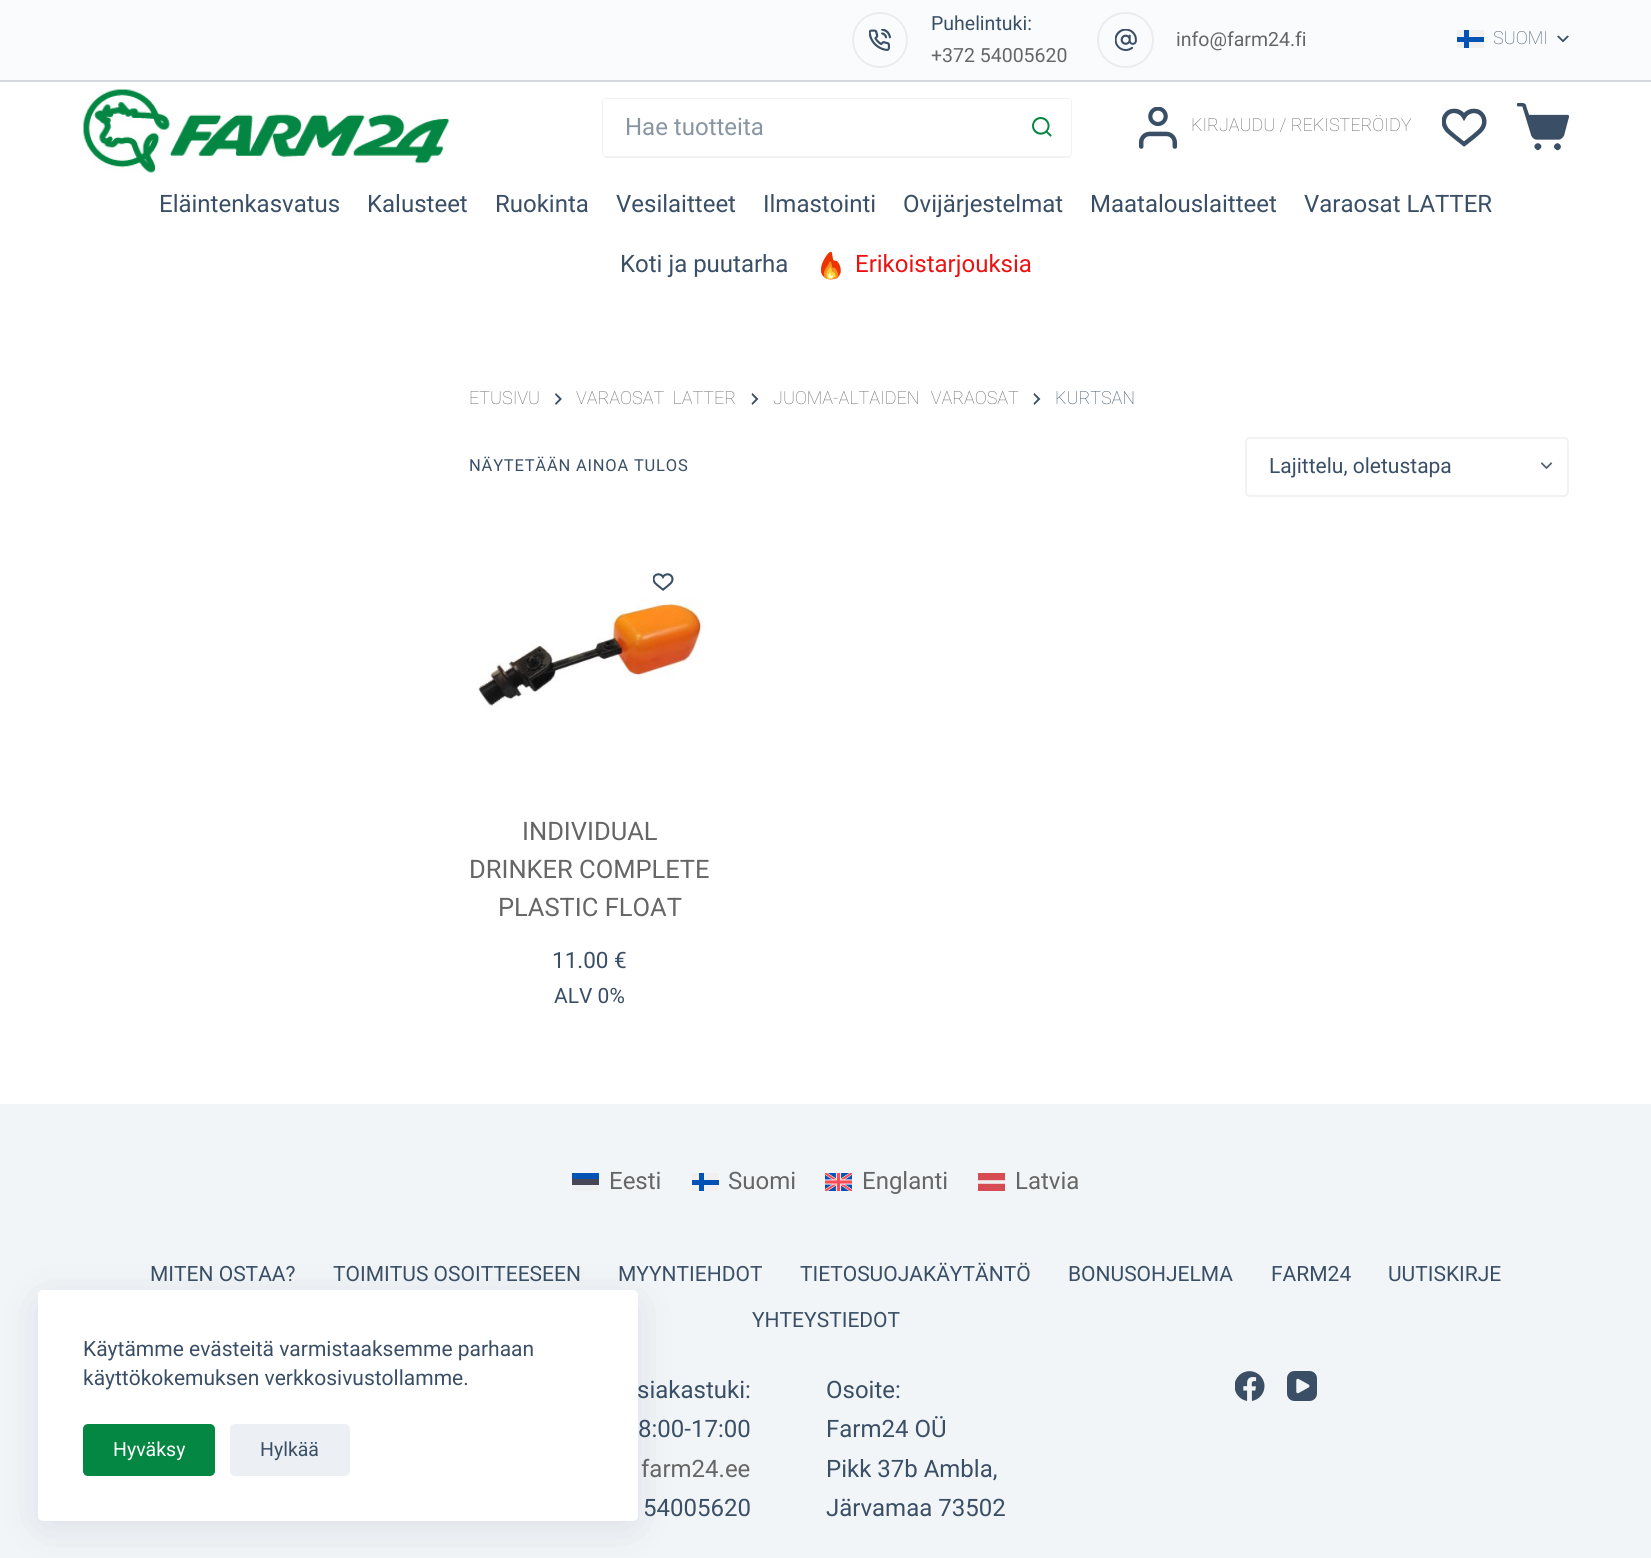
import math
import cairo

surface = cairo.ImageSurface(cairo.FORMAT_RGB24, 1651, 1558)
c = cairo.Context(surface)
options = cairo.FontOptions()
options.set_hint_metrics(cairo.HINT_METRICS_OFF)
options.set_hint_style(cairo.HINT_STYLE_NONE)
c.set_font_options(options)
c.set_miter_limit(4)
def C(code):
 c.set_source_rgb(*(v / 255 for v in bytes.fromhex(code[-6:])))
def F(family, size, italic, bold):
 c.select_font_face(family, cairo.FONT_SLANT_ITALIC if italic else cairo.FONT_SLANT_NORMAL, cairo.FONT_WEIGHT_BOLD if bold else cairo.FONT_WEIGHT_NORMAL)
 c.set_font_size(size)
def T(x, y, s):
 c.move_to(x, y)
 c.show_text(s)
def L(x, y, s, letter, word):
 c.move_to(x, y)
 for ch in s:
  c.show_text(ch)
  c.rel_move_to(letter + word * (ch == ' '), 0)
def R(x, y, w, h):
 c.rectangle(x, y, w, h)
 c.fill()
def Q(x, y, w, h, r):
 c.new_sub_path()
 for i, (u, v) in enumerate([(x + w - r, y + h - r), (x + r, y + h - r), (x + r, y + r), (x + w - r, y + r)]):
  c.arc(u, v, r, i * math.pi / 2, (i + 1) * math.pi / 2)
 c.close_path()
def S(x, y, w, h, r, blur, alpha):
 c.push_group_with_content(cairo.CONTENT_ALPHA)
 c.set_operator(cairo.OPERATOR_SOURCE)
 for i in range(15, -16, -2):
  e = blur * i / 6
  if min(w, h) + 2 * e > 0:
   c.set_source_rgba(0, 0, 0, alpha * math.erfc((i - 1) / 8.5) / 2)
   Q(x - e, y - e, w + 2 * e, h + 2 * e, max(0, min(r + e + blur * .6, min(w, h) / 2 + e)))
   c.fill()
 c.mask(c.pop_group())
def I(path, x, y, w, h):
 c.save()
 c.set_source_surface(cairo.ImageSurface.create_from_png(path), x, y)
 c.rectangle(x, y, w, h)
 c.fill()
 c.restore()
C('ffffff')
c.paint()
C('fafbfc')
R(0,0,1651,80)
c.arc(880,40,27,0,2 * math.pi)
C('eaedf0')
c.stroke()
I('1.png',869,29,22,22)
F('Roboto',19.5,0,0)
C('3a4f66')
T(931,30,'Puhelintuki:')
C('666666')
T(931,62,'+372 54005620')
Q(1098,13,55,54,27)
C('eaedf0')
c.stroke()
I('2.png',1115,29,22,22)
C('666666')
T(1176,46,'info@farm24.fi')
C('f0f0f0')
R(1457,30,27,18)
C('0052b4')
R(1457,37,27,5)
R(1464,30,5,18)
F('Roboto Thin',18,0,0)
C('3a4f66')
T(1493,44,'SUOMI')
I('3.png',1557,35,12,8)
C('d5d8dc')
R(0,80,1651,2)
I('4.png',83,89,367,84)
C('f2f2f2')
c.set_fill_rule(cairo.FILL_RULE_EVEN_ODD)
c.new_path()
c.move_to(606,98)
c.line_to(1012,98)
c.line_to(1012,158)
c.line_to(606,158)
c.curve_to(604,158,602,155,602,153)
c.line_to(602,102)
c.curve_to(602,100,604,98,606,98)
c.close_path()
c.move_to(606,99)
c.line_to(1012,99)
c.line_to(1012,156)
c.line_to(606,156)
c.curve_to(604,156,603,155,603,153)
c.line_to(603,102)
c.curve_to(603,100,604,99,606,99)
c.close_path()
c.fill()
F('Roboto',24,0,0)
C('8995a3')
T(625,135,'Hae tuotteita')
C('f2f2f2')
c.new_path()
c.move_to(1012,98)
c.line_to(1068,98)
c.curve_to(1070,98,1072,100,1072,102)
c.line_to(1072,153)
c.curve_to(1072,155,1070,158,1068,158)
c.line_to(1012,158)
c.close_path()
c.move_to(1012,99)
c.line_to(1068,99)
c.curve_to(1070,99,1071,100,1071,102)
c.line_to(1071,153)
c.curve_to(1071,155,1070,156,1068,156)
c.line_to(1012,156)
c.close_path()
c.fill()
I('5.png',1032,117,20,20)
c.new_path()
c.move_to(1035.5,137)
c.curve_to(1030,134,1028,127.5,1031.5,122)
C('ffffff')
c.set_line_width(2.2)
c.set_line_cap(cairo.LINE_CAP_ROUND)
c.stroke()
I('6.png',1138,107,40,42)
F('Roboto Thin',18,0,0)
C('666666')
T(1191,131,'KIRJAUDU / REKISTERÖIDY')
I('7.png',1442,108,45,39)
I('8.png',1517,102,52,49)
F('Roboto',24,0,0)
C('3a4f66')
T(159,212,'Eläintenkasvatus')
T(367,212,'Kalusteet')
T(495,212,'Ruokinta')
T(616,212,'Vesilaitteet')
T(763,212,'Ilmastointi')
T(903,212,'Ovijärjestelmat')
T(1090,212,'Maatalouslaitteet')
T(1304,212,'Varaosat LATTER')
T(620,272,'Koti ja puutarha')
I('9.png',820,252,21,28)
C('ee1111')
T(855,272,'Erikoistarjouksia')
F('Roboto Thin',18,0,0)
C('666666')
T(469,404,'ETUSIVU')
I('10.png',555,393,7,12)
L(576,404,'VARAOSAT LATTER',0,4)
I('11.png',751,393,8,12)
L(773,404,'JUOMA-ALTAIDEN VARAOSAT',0,7)
I('11.png',1033,393,8,12)
C('3a4f66')
T(1055,404,'KURTSAN')
F('Roboto',16.5,0,0)
L(469,471,'NÄYTETÄÄN AINOA TULOS',.8,0)
I('12.png',1541,462,12,8)
Q(1246,438,322,58,4)
C('f2f2f2')
c.set_line_width(2)
c.set_line_cap(cairo.LINE_CAP_BUTT)
c.stroke()
F('Roboto',21,0,0)
C('3a4f66')
T(1269,473,'Lajittelu, oletustapa')
I('14.png',476,598,229,110)
C('ffffff')
c.arc(663,581,24,0,2 * math.pi)
c.fill()
I('13.png',653,573,21,18)
F('Roboto',25.5,0,0)
C('666666')
T(522,840,'INDIVIDUAL')
T(469,878,'DRINKER COMPLETE')
T(498,916,'PLASTIC FLOAT')
F('Roboto',22.5,0,0)
C('3a4f66')
T(552,968,'11.00 €')
F('Roboto',21,0,0)
T(554,1003,'ALV 0%')
C('f2f5f7')
R(0,1104,1651,454)
C('0052b4')
R(572,1173,27,6)
F('Roboto',24,0,0)
C('666666')
T(609,1189,'Eesti')
C('464655')
R(572,1179,27,6)
C('f0f0f0')
R(572,1185,27,6)
R(692,1173,27,18)
C('666666')
T(728,1189,'Suomi')
C('0052b4')
R(692,1180,27,5)
R(699,1173,5,18)
I('15.png',825,1173,27,18)
C('666666')
T(862,1189,'Englanti')
I('16.png',978,1173,27,18)
T(1015,1189,'Latvia')
F('Roboto',21,0,0)
C('3a4f66')
T(150,1281,'MITEN OSTAA?')
T(333,1281,'TOIMITUS OSOITTEESEEN')
T(618,1281,'MYYNTIEHDOT')
T(800,1281,'TIETOSUOJAKÄYTÄNTÖ')
T(1068,1281,'BONUSOHJELMA')
T(1271,1281,'FARM24')
T(1388,1281,'UUTISKIRJE')
T(752,1327,'YHTEYSTIEDOT')
F('Roboto',24,0,0)
T(637,1398,'siakastuki:')
T(638,1437,'8:00-17:00')
C('666666')
T(641,1477,'farm24.ee')
C('3a4f66')
T(643,1516,'54005620')
T(826,1398,'Osoite:')
T(826,1437,'Farm24 OÜ')
T(826,1477,'Pikk 37b Ambla,')
T(826,1516,'Järvamaa 73502')
I('17.png',1235,1371,30,30)
I('18.png',1287,1371,30,30)
C('223865')
S(45,1305,585,216,0,22.5,.15)
C('ffffff')
Q(38,1290,600,231,5)
c.fill()
F('Roboto',21,0,0)
C('3a4f66')
T(83,1356,'Käytämme evästeitä varmistaaksemme parhaan')
T(83,1385,'käyttökokemuksen verkkosivustollamme.')
C('048743')
Q(83,1424,132,52,5)
c.fill()
F('Roboto',19.5,0,0)
C('ffffff')
T(113,1456,'Hyväksy')
C('eceff3')
Q(230,1424,120,52,5)
c.fill()
C('3a4f66')
T(260,1456,'Hylkää')
surface.write_to_png('o.png')
